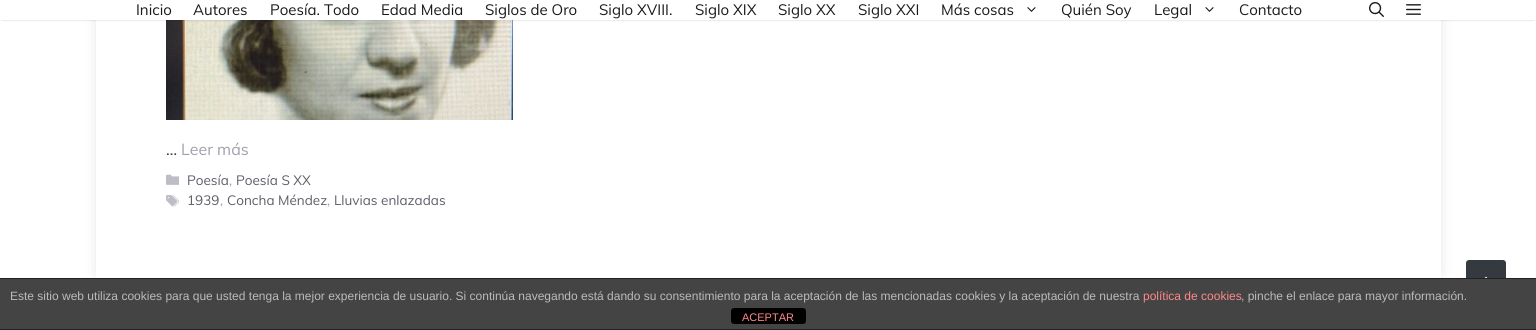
import math
import cairo

surface = cairo.ImageSurface(cairo.FORMAT_RGB24, 1536, 330)
c = cairo.Context(surface)
options = cairo.FontOptions()
options.set_hint_metrics(cairo.HINT_METRICS_OFF)
options.set_hint_style(cairo.HINT_STYLE_NONE)
c.set_font_options(options)
c.set_miter_limit(4)
def C(code):
 c.set_source_rgb(*(v / 255 for v in bytes.fromhex(code[-6:])))
def F(family, size, italic, bold):
 c.select_font_face(family, cairo.FONT_SLANT_ITALIC if italic else cairo.FONT_SLANT_NORMAL, cairo.FONT_WEIGHT_BOLD if bold else cairo.FONT_WEIGHT_NORMAL)
 c.set_font_size(size)
def T(x, y, s):
 c.move_to(x, y)
 c.show_text(s)
def R(x, y, w, h):
 c.rectangle(x, y, w, h)
 c.fill()
def Q(x, y, w, h, r):
 c.new_sub_path()
 for i, (u, v) in enumerate([(x + w - r, y + h - r), (x + r, y + h - r), (x + r, y + r), (x + w - r, y + r)]):
  c.arc(u, v, r, i * math.pi / 2, (i + 1) * math.pi / 2)
 c.close_path()
def S(x, y, w, h, r, blur, alpha):
 c.push_group_with_content(cairo.CONTENT_ALPHA)
 c.set_operator(cairo.OPERATOR_SOURCE)
 for i in range(15, -16, -2):
  e = blur * i / 6
  if min(w, h) + 2 * e > 0:
   c.set_source_rgba(0, 0, 0, alpha * math.erfc((i - 1) / 8.5) / 2)
   Q(x - e, y - e, w + 2 * e, h + 2 * e, max(0, min(r + e + blur * .6, min(w, h) / 2 + e)))
   c.fill()
 c.mask(c.pop_group())
def I(path, x, y, w, h):
 c.save()
 c.set_source_surface(cairo.ImageSurface.create_from_png(path), x, y)
 c.rectangle(x, y, w, h)
 c.fill()
 c.restore()
C('ffffff')
c.paint()
C('000000')
S(106,-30,1325,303,0,10,.3)
C('ffffff')
R(96,20,1345,258)
I('4.png',166,20,347,100)
C('000000')
S(2,4,1532,16,0,1,.2)
C('ffffff')
R(0,0,1536,20)
F('Muli',15,0,0)
C('1a1a1a')
T(136,15,'Inicio')
T(193,15,'Autores')
T(270,15,'Poesía. Todo')
T(381,15,'Edad Media')
T(485,15,'Siglos de Oro')
T(599,15,'Siglo XVIII.')
T(695,15,'Siglo XIX')
T(778,15,'Siglo XX')
T(858,15,'Siglo XXI')
T(941,15,'Más cosas')
I('1.png',1027,7,9,5)
T(1061,15,'Quién Soy')
T(1154,15,'Legal')
I('1.png',1205,7,9,5)
T(1239,15,'Contacto')
I('2.png',1369,2,15,15)
I('3.png',1406,4,15,11)
F('Muli',16,0,0)
C('343a40')
T(166,155,'…')
C('a0a1ad')
T(181,155,'Leer más')
I('5.png',166,174,13,11)
F('Muli',13.5,0,0)
C('5e5e69')
T(187,185,'Poesía')
C('a0a1ad')
T(229,185,',')
C('5e5e69')
T(236,185,'Poesía S XX')
I('6.png',166,195,13,12)
T(187,205,'1939')
C('a0a1ad')
T(220,205,',')
C('5e5e69')
T(227,205,'Concha Méndez')
C('a0a1ad')
T(327,205,',')
C('5e5e69')
T(334,205,'Lluvias enlazadas')
C('343a40')
Q(1466,260,40,40,3)
c.fill()
I('7.png',1484,276,4,2)
C('444444')
R(0,279,1536,50)
C('222222')
R(0,278,1536,1)
R(0,329,1536,1)
F('Liberation Sans',12,0,0)
C('bbbbbb')
T(10,300,'Este sitio web utiliza cookies para que usted tenga la mejor experiencia de usuario. Si continúa navegando está dando su consentimiento para la aceptación de las mencionadas cookies y la aceptación de nuestra')
C('ff8888')
T(1143,300,'política de cookies')
C('bbbbbb')
T(1241,300,', pinche el enlace para mayor información.')
C('000000')
Q(731,308,75,16,3)
c.fill()
F('Liberation Sans',11,0,0)
C('ff8888')
T(742,321,'ACEPTAR')
surface.write_to_png('o.png')
